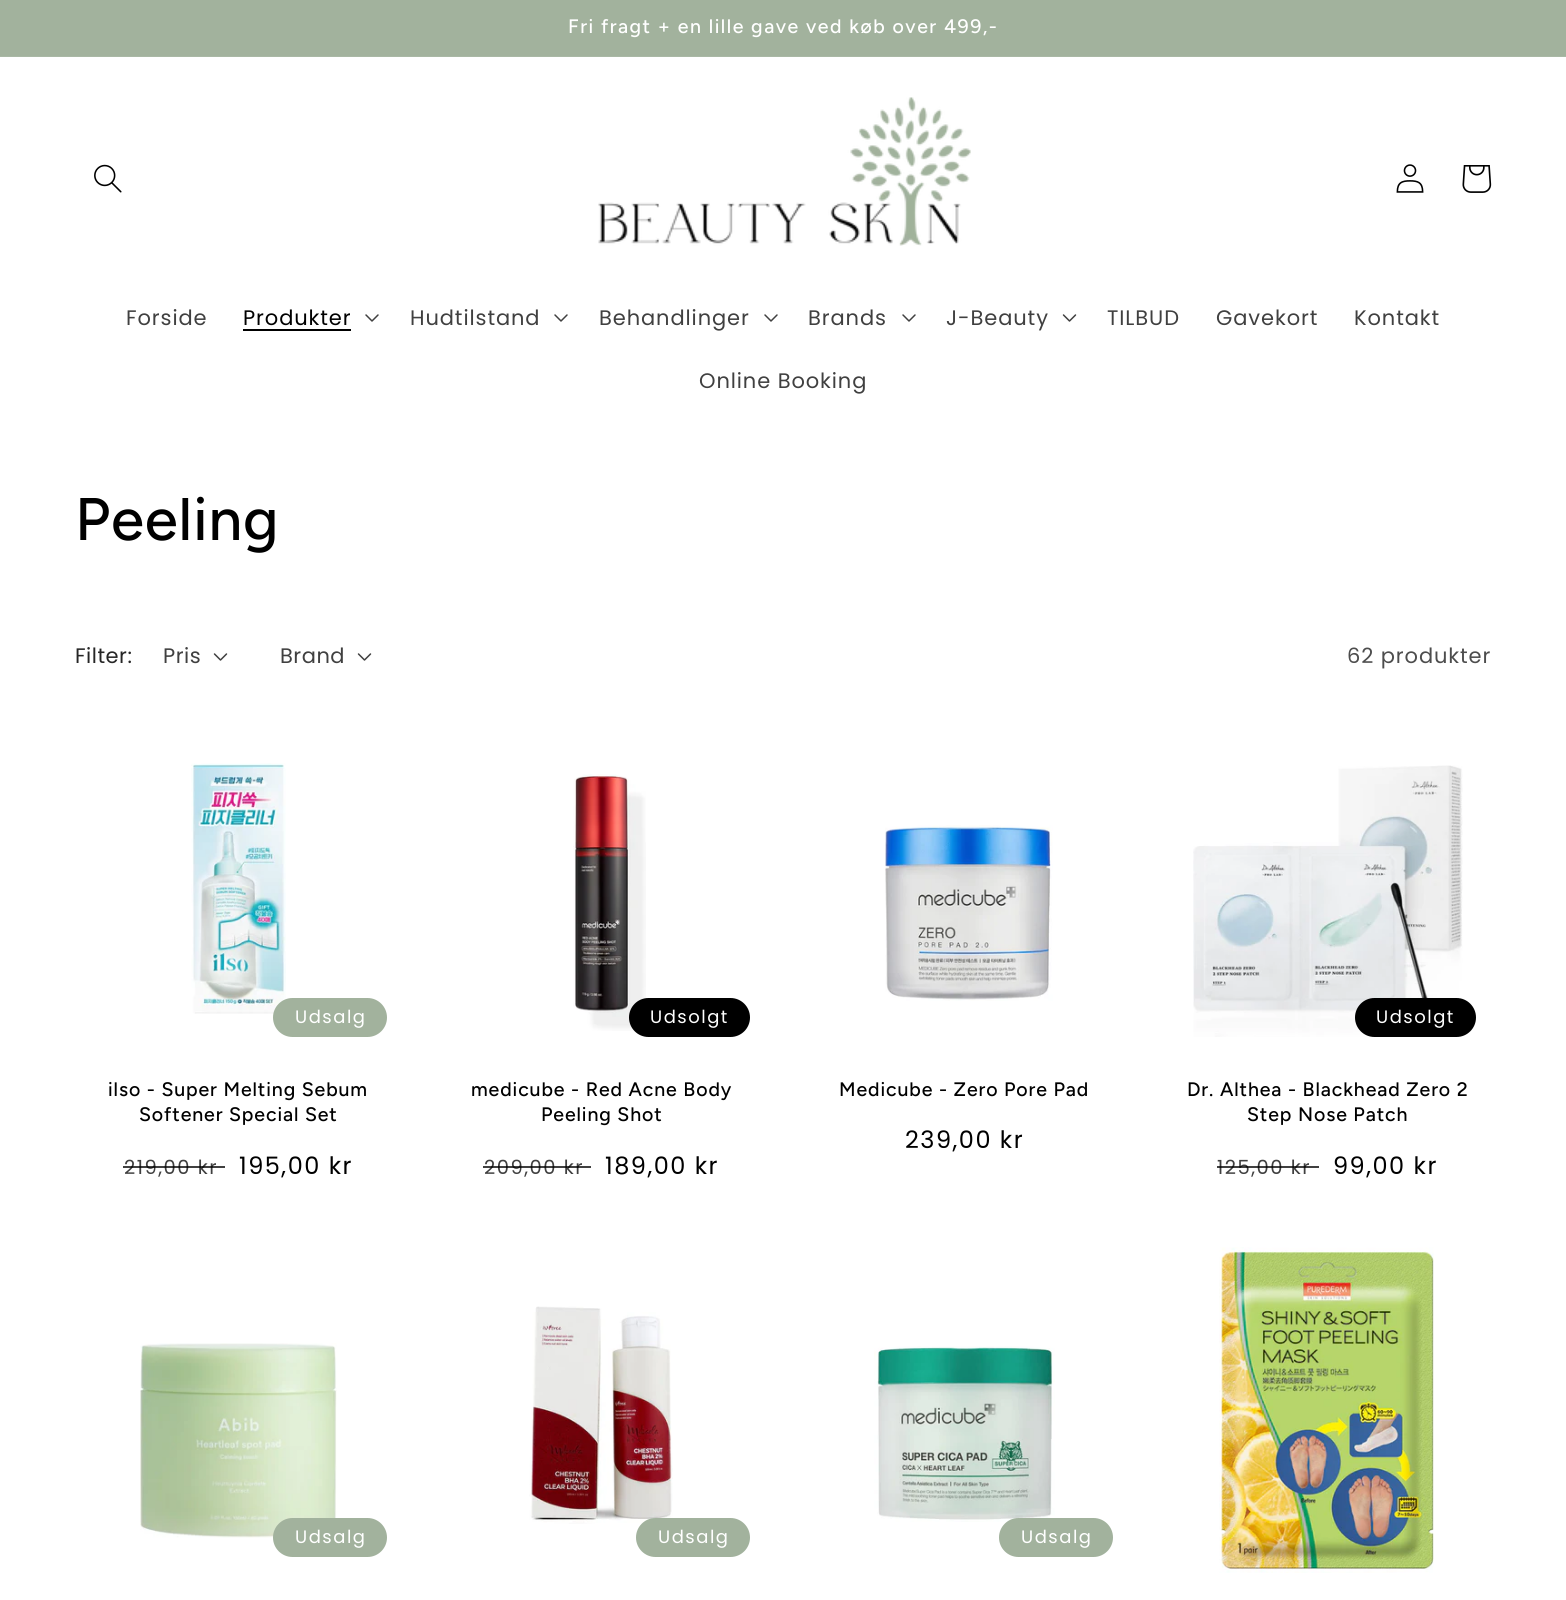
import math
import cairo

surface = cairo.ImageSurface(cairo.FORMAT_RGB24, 1566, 1600)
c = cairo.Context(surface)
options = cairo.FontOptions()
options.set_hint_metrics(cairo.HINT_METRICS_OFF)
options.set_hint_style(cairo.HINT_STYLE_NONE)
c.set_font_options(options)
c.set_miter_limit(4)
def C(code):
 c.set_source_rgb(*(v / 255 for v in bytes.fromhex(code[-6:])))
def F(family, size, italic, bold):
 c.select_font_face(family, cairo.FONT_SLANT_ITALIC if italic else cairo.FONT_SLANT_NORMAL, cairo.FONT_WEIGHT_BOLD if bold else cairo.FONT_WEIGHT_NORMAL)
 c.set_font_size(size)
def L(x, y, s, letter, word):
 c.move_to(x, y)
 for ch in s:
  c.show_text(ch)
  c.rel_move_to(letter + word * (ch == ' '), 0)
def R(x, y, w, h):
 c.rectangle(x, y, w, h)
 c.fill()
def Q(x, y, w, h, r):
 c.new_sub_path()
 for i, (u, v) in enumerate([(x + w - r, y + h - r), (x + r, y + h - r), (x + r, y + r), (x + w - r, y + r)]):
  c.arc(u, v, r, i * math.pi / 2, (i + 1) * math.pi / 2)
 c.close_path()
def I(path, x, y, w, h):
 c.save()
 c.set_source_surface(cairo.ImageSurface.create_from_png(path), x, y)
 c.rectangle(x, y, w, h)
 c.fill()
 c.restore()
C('ffffff')
c.paint()
C('a2b29d')
R(0,0,1566,56)
C('a9b8a5')
R(0,56,1566,1)
F('Figtree Medium',19.5,0,0)
C('ffffff')
L(568,33,'Fri fragt + en lille gave ved køb over 499,-',1.5,0)
I('1.png',94,164,28,29)
I('2.png',598,97,373,149)
I('3.png',1396,164,28,29)
I('4.png',1462,165,30,28)
F('Poppins',21,0,0)
C('404040')
L(126,325,'Forside',.9,0)
C('000000')
L(243,325,'Produkter',.9,0)
R(243,329,108,2)
I('5.png',365,314,14,8)
C('404040')
L(410,325,'Hudtilstand',.9,0)
I('5.png',554,314,14,8)
L(599,325,'Behandlinger',.9,0)
I('5.png',764,314,14,8)
L(808,325,'Brands',.9,0)
I('5.png',902,314,14,8)
L(946,325,'J-Beauty',.9,0)
I('6.png',1062,314,15,8)
L(1107,325,'TILBUD',.9,0)
L(1216,325,'Gavekort',.9,0)
L(1354,325,'Kontakt',.9,0)
L(699,388,'Online Booking',.9,0)
F('Figtree Medium',60,0,0)
C('000000')
L(75,540,'Peeling',.9,0)
F('Poppins',21,0,0)
C('262626')
L(75,663,'Filter:',.5,0)
C('404040')
L(163,663,'Pris',.5,0)
I('6.png',213,653,15,8)
L(280,663,'Brand',.5,0)
I('6.png',357,653,15,8)
C('4d4d4d')
L(1347,663,'62 produkter',.9,0)
I('7.png',191,763,95,251)
C('a2b29d')
Q(274,999,112,37,18.5)
c.fill_preserve()
c.stroke()
F('Poppins',18,0,0)
C('ffffff')
L(295,1023,'Udsalg',1.5,0)
F('Figtree Medium',19.5,0,0)
C('000000')
L(108,1096,'ilso - Super Melting Sebum',.9,0)
L(139,1121,'Softener Special Set',.9,0)
F('Poppins',19.5,0,0)
C('404040')
L(124,1174,'219,00 kr',1.5,0)
c.set_source_rgba(0,0,0,0.75)
R(123,1166,102,2)
F('Poppins',24,0,0)
C('000000')
L(239,1174,'195,00 kr',1.5,0)
I('8.png',573,774,73,257)
Q(630,999,119,37,18.5)
c.fill_preserve()
c.stroke()
F('Poppins',18,0,0)
C('ffffff')
L(650,1023,'Udsolgt',1.5,0)
F('Figtree Medium',19.5,0,0)
C('000000')
L(471,1096,'medicube - Red Acne Body',.9,0)
L(541,1121,'Peeling Shot',.9,0)
F('Poppins',19.5,0,0)
C('404040')
L(484,1174,'209,00 kr',1.5,0)
c.set_source_rgba(0,0,0,0.75)
R(483,1166,108,2)
F('Poppins',24,0,0)
C('000000')
L(605,1174,'189,00 kr',1.5,0)
I('9.png',885,825,168,176)
F('Figtree Medium',19.5,0,0)
L(839,1096,'Medicube - Zero Pore Pad',.9,0)
F('Poppins',24,0,0)
L(905,1148,'239,00 kr',1.5,0)
I('10.png',1193,765,270,272)
Q(1356,999,119,37,18.5)
c.fill_preserve()
c.stroke()
F('Poppins',18,0,0)
C('ffffff')
L(1376,1023,'Udsolgt',1.5,0)
F('Figtree Medium',19.5,0,0)
C('000000')
L(1187,1096,'Dr. Althea - Blackhead Zero 2',.9,0)
L(1247,1121,'Step Nose Patch',.9,0)
F('Poppins',19.5,0,0)
C('404040')
L(1217,1174,'125,00 kr',1.5,0)
c.set_source_rgba(0,0,0,0.75)
R(1217,1166,102,2)
F('Poppins',24,0,0)
C('000000')
L(1333,1174,'99,00 kr',1.5,0)
I('11.png',140,1343,197,195)
C('a2b29d')
Q(274,1519,112,37,18.5)
c.fill_preserve()
c.stroke()
F('Poppins',18,0,0)
C('ffffff')
L(295,1543,'Udsalg',1.5,0)
I('12.png',529,1306,144,218)
C('a2b29d')
Q(637,1519,112,37,18.5)
c.fill_preserve()
c.stroke()
C('ffffff')
L(658,1543,'Udsalg',1.5,0)
I('13.png',874,1346,181,176)
C('a2b29d')
Q(1000,1519,112,37,18.5)
c.fill_preserve()
c.stroke()
C('ffffff')
L(1021,1543,'Udsalg',1.5,0)
I('14.png',1219,1247,215,326)
surface.write_to_png('o.png')
